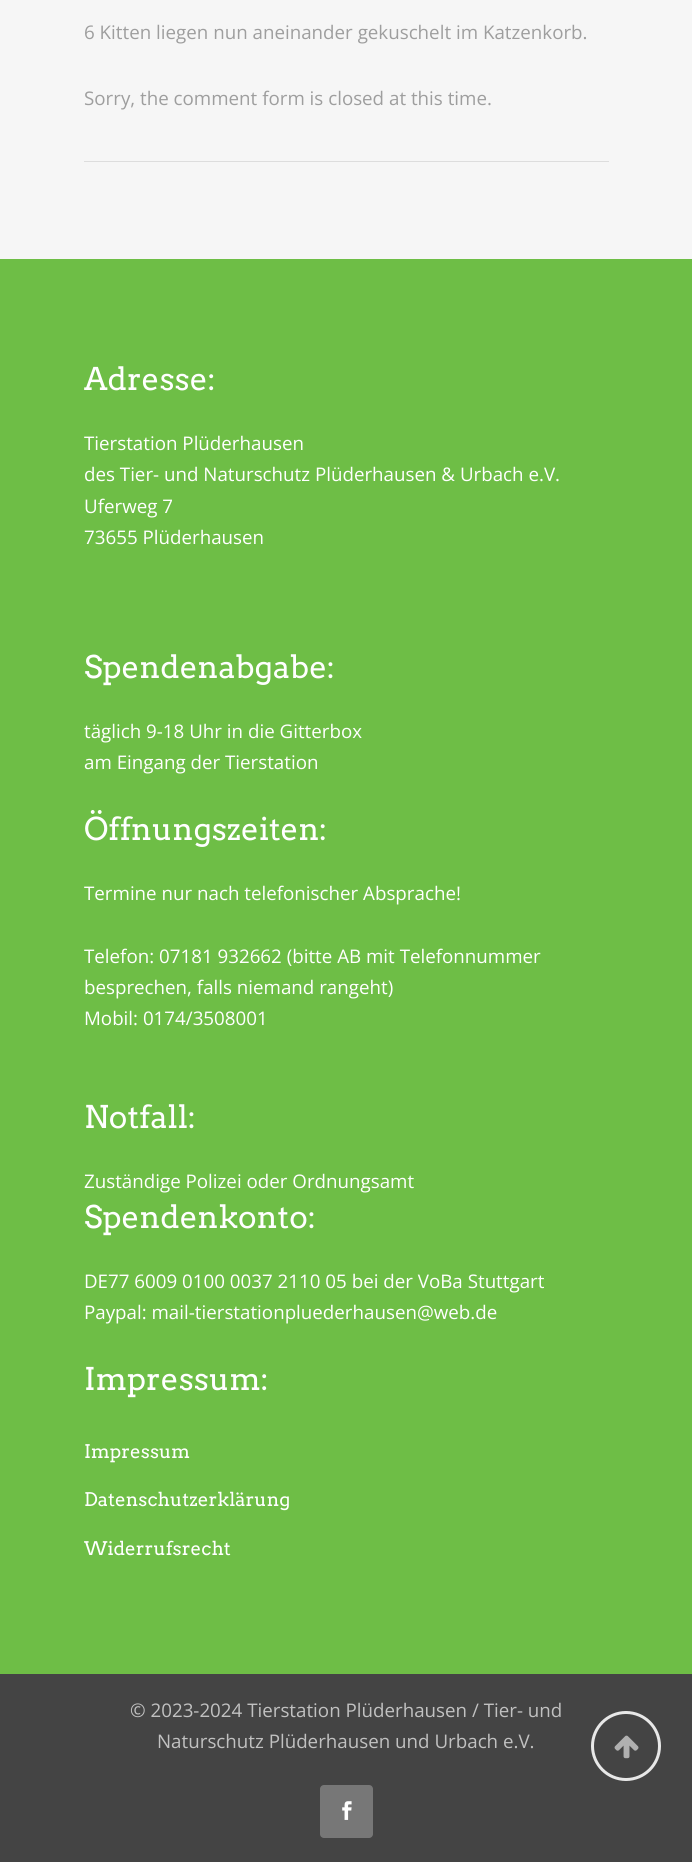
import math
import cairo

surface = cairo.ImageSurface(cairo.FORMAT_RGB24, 692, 1862)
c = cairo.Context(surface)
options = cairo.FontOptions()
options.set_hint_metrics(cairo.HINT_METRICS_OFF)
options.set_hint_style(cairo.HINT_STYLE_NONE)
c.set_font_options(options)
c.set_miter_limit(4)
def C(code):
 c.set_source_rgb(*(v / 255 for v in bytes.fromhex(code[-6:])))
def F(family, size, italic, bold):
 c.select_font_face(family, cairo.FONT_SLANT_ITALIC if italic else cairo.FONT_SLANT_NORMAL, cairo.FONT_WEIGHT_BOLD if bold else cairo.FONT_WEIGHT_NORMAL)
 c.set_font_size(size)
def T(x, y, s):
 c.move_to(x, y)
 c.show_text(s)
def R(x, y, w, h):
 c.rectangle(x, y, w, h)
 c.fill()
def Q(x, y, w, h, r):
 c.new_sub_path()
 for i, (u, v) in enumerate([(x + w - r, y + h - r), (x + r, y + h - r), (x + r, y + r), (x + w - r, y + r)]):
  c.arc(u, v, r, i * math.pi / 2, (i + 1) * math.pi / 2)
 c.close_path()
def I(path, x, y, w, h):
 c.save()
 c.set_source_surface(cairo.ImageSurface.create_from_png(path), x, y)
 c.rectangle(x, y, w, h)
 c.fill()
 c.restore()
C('f6f6f6')
c.paint()
F('Open Sans',18.75,0,0)
C('9e9e9e')
T(84,39,'6 Kitten liegen nun aneinander gekuschelt im Katzenkorb.')
T(84,105,'Sorry, the comment form is closed at this time.')
C('dddddd')
R(84,161,525,1)
C('6ebe46')
R(0,259,692,1415)
F('Arvo',31.25,0,0)
C('ffffff')
T(84,390,'Adresse:')
F('Open Sans',18.75,0,0)
T(84,450,'Tierstation Plüderhausen')
T(84,481,'des Tier- und Naturschutz Plüderhausen & Urbach e.V.')
T(84,513,'Uferweg 7')
T(84,544,'73655 Plüderhausen')
F('Arvo',31.25,0,0)
T(84,678,'Spendenabgabe:')
F('Open Sans',18.75,0,0)
T(84,738,'täglich 9-18 Uhr in die Gitterbox')
T(84,769,'am Eingang der Tierstation')
F('Arvo',31.25,0,0)
T(84,840,'Öffnungszeiten:')
F('Open Sans',18.75,0,0)
T(84,900,'Termine nur nach telefonischer Absprache!')
T(84,963,'Telefon: 07181 932662 (bitte AB mit Telefonnummer')
T(84,994,'besprechen, falls niemand rangeht)')
T(84,1025,'Mobil: 0174/3508001')
F('Arvo',31.25,0,0)
T(84,1128,'Notfall:')
F('Open Sans',18.75,0,0)
T(84,1188,'Zuständige Polizei oder Ordnungsamt')
F('Arvo',31.25,0,0)
T(84,1228,'Spendenkonto:')
F('Open Sans',18.75,0,0)
T(84,1288,'DE77 6009 0100 0037 2110 05 bei der VoBa Stuttgart')
T(84,1319,'Paypal: mail-tierstationpluederhausen@web.de')
F('Arvo',31.25,0,0)
T(84,1390,'Impressum:')
F('Arvo',18.75,0,0)
T(84,1458,'Impressum')
T(84,1506,'Datenschutzerklärung')
T(84,1555,'Widerrufsrecht')
C('444444')
R(0,1674,692,188)
F('Open Sans',18.75,0,0)
C('c1c1c1')
T(130,1717,'© 2023-2024 Tierstation Plüderhausen / Tier- und')
T(157,1748,'Naturschutz Plüderhausen und Urbach e.V.')
C('777777')
Q(320,1785,53,53,4)
c.fill()
I('1.png',342,1801,10,19)
c.arc(626,1746,33.5,0,2 * math.pi)
C('e8e8e8')
c.set_line_width(3)
c.stroke()
I('2.png',614,1735,25,24)
surface.write_to_png('o.png')
